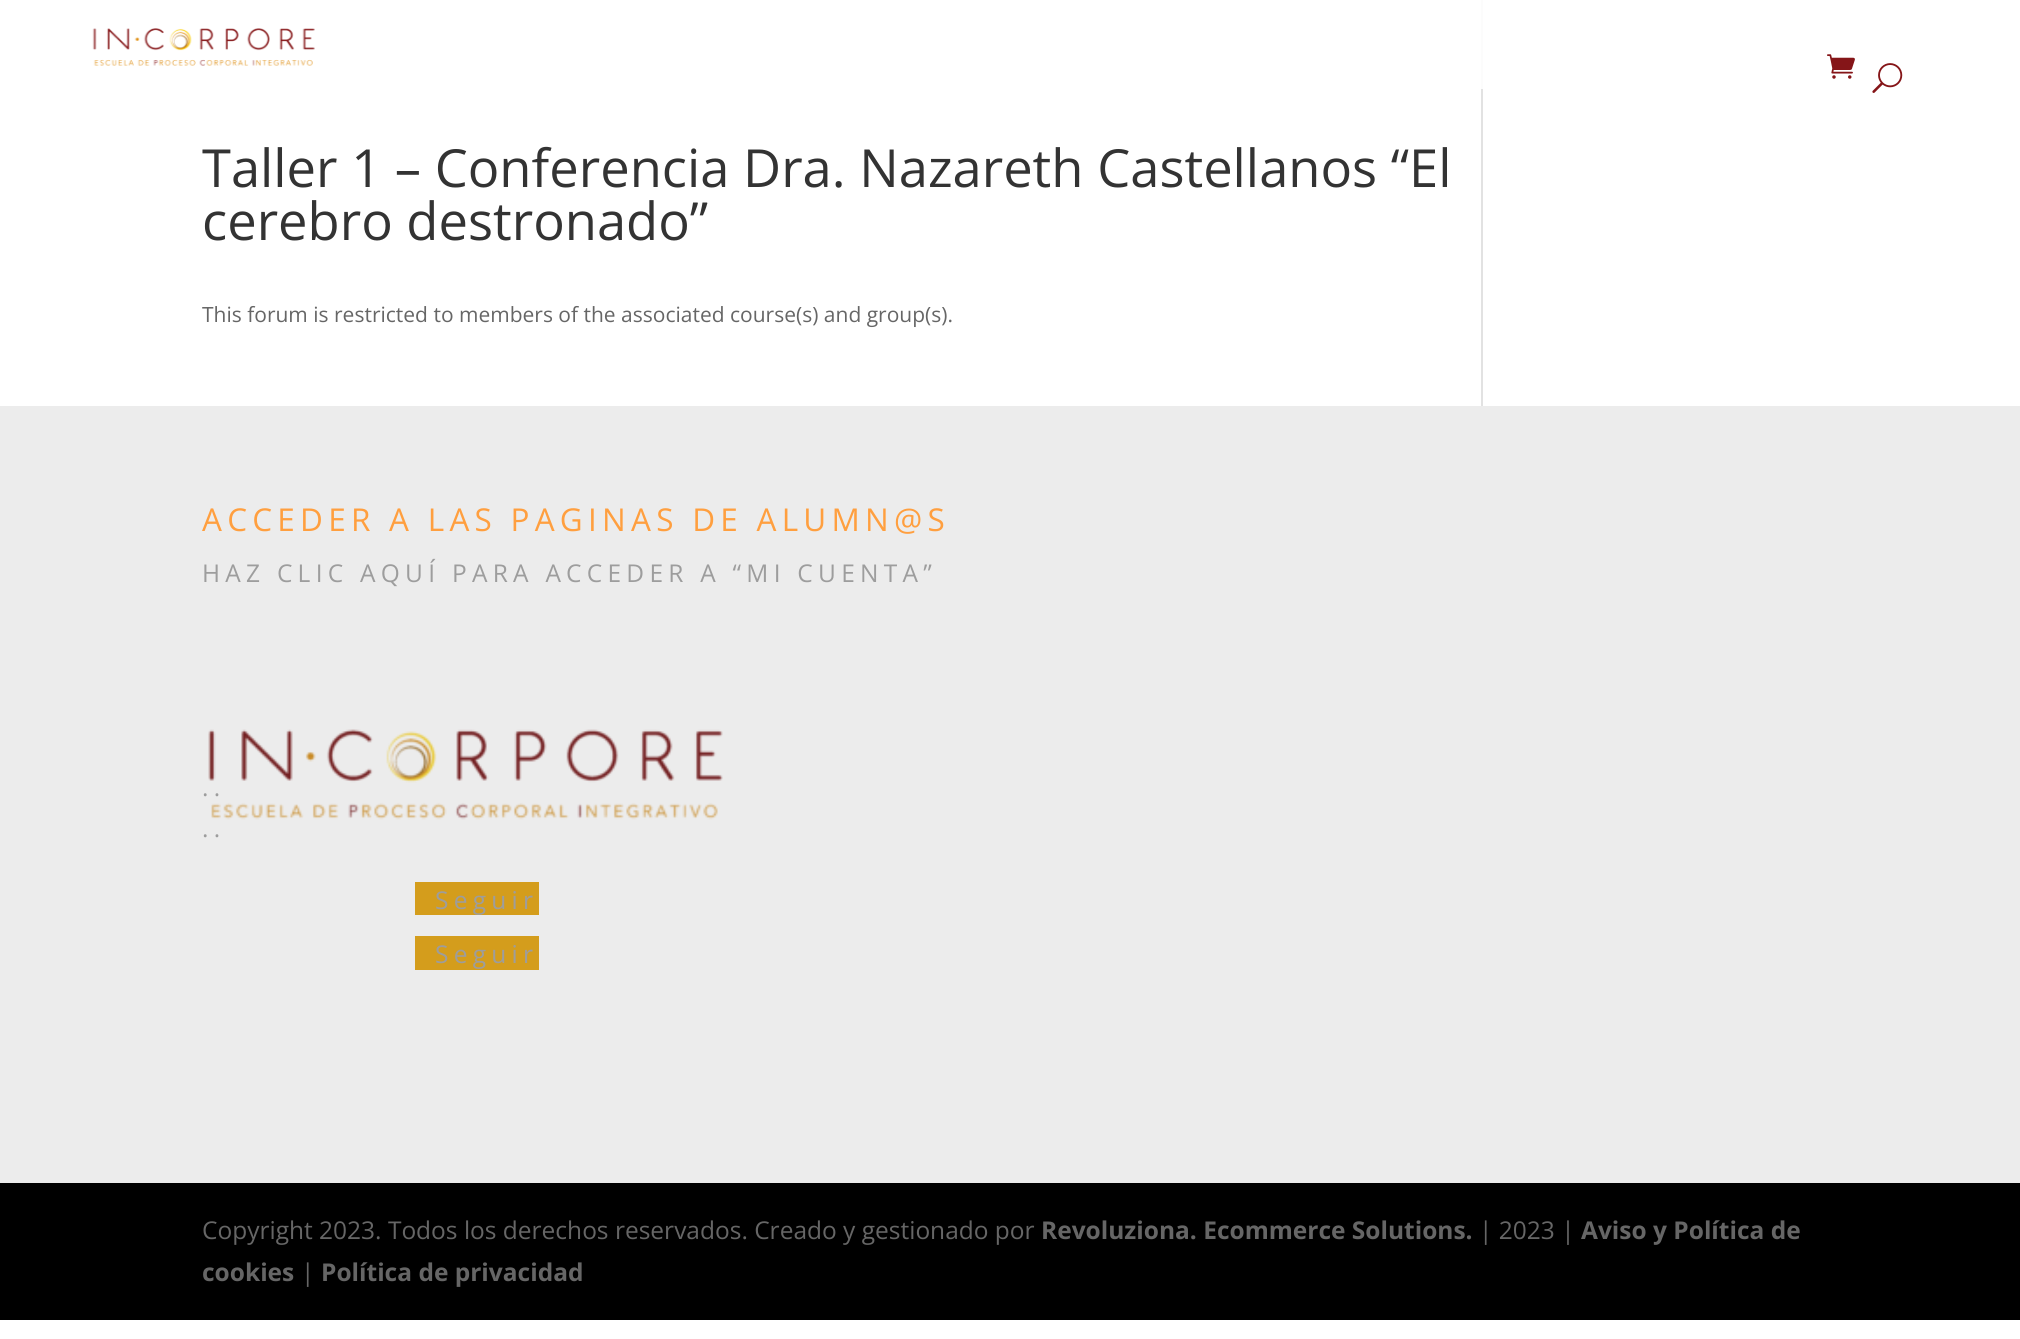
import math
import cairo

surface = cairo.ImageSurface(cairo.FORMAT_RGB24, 2020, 1339)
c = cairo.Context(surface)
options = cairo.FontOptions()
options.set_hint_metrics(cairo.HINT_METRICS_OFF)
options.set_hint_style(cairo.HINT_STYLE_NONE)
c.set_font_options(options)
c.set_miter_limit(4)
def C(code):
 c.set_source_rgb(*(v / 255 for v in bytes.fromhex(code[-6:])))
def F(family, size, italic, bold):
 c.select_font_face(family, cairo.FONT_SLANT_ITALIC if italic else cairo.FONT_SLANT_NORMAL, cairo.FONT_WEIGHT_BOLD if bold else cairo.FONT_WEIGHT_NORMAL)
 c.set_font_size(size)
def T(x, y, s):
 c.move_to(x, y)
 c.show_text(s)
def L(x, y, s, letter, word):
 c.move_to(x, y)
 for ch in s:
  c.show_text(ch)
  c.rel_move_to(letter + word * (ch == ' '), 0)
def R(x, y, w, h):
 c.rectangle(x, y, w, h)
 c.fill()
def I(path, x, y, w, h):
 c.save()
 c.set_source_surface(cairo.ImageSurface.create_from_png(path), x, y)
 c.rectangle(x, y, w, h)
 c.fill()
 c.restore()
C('ffffff')
c.paint()
I('1.png',92,28,223,38)
I('2.png',1827,54,28,25)
I('3.png',1872,63,31,30)
F('Open Sans',52.5,0,0)
C('333333')
T(202,187,'Taller 1 – Conferencia Dra. Nazareth Castellanos “El')
T(202,240,'cerebro destronado”')
F('Open Sans',21,0,0)
C('666666')
T(202,322,'This forum is restricted to members of the associated course(s) and group(s).')
C('e2e2e2')
R(1481,89,2,317)
C('fcfcfc')
R(1481,0,2,89)
C('ececec')
R(0,406,2020,777)
F('Open Sans',31.5,0,0)
C('ff9f3f')
L(202,531,'ACCEDER A LAS PAGINAS DE ALUMN@S',5.25,0)
F('Open Sans',24.5,0,0)
C('9d9d9d')
L(202,582,'HAZ CLIC AQUÍ PARA ACCEDER A “MI CUENTA”',5.25,0)
I('4.png',208,729,515,91)
L(202,796,'..',5.25,0)
L(202,837,'..',5.25,0)
C('d49d1c')
R(415,882,124,33)
C('9d9d9d')
L(435,909,'Seguir',5.25,0)
C('d49d1c')
R(415,936,124,34)
C('9d9d9d')
L(435,963,'Seguir',5.25,0)
C('000000')
R(0,1183,2020,137)
C('666666')
T(202,1239,'Copyright 2023. Todos los derechos reservados. Creado y gestionado por')
F('Open Sans',24.5,0,1)
T(1041,1239,'Revoluziona. Ecommerce Solutions.')
F('Open Sans',24.5,0,0)
T(1479,1239,'| 2023 |')
F('Open Sans',24.5,0,1)
T(1581,1239,'Aviso y Política de')
T(202,1281,'cookies')
F('Open Sans',24.5,0,0)
T(301,1281,'|')
F('Open Sans',24.5,0,1)
T(321,1281,'Política de privacidad')
surface.write_to_png('o.png')
